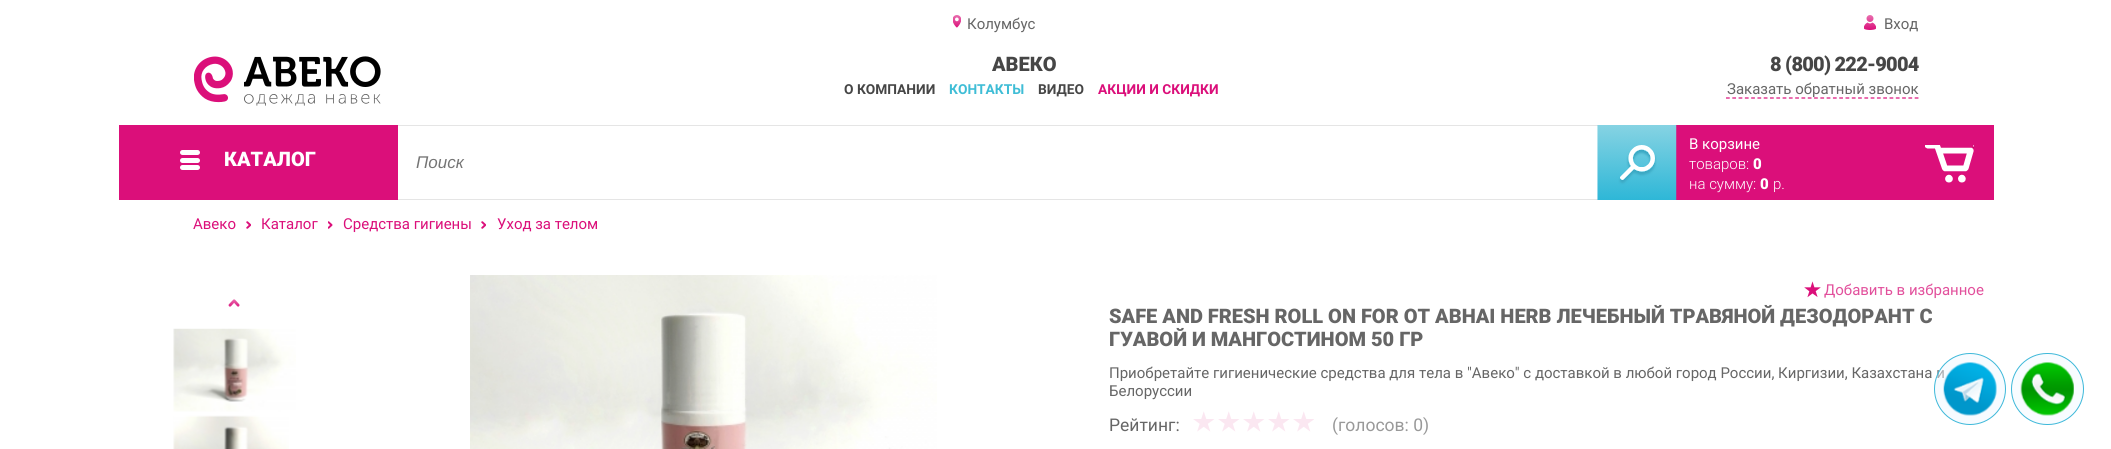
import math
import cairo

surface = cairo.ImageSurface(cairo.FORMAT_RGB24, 2111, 449)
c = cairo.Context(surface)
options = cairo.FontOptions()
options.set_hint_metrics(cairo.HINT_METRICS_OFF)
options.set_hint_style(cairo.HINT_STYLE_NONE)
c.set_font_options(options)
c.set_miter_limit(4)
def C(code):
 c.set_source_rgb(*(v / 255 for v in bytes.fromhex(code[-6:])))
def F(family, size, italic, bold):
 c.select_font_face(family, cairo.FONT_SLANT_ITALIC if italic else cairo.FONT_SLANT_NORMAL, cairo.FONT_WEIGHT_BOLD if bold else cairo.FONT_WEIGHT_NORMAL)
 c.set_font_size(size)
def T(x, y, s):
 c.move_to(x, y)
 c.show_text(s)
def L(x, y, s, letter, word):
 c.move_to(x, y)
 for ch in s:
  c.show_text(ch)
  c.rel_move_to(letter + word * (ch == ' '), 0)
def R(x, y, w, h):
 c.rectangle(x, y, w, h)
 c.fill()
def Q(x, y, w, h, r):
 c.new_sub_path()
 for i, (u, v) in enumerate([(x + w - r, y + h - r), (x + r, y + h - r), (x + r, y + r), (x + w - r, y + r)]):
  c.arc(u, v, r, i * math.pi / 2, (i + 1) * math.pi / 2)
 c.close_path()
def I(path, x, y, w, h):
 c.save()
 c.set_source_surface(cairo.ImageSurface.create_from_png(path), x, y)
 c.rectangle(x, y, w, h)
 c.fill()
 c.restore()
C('ffffff')
c.paint()
I('1.png',953,15,8,13)
F('Roboto',15,0,0)
C('666666')
T(967,29,'Колумбус')
I('2.png',1864,15,12,15)
T(1884,29,'Вход')
I('3.png',194,56,187,50)
F('Roboto Black',20,0,0)
C('464646')
T(992,71,'АВЕКО')
F('Roboto',13.75,0,1)
T(844,94,'О КОМПАНИИ')
C('3fbdd6')
T(949,94,'КОНТАКТЫ')
C('464646')
T(1038,94,'ВИДЕО')
C('db0f7a')
T(1098,94,'АКЦИИ И СКИДКИ')
F('Roboto Black',20,0,0)
C('464646')
L(1770,71,'8 (800) 222-9004',-.75,0)
c.new_path()
c.move_to(1726,98)
c.line_to(1919,98)
C('db0f7a')
c.set_line_width(1.2)
c.set_dash([3.75,2.54])
c.stroke()
F('Roboto',15,0,0)
C('666666')
T(1727,94,'Заказать обратный звонок')
C('db0f7a')
R(119,125,1875,75)
C('ffffff')
Q(180,150,20,5,2.5)
c.fill()
Q(180,158,20,5,2.5)
c.fill()
Q(180,165,20,5,2.5)
c.fill()
F('Roboto Black',20,0,0)
T(224,166,'КАТАЛОГ')
R(398,126,1200,73)
C('e5e5e5')
R(398,125,1200,1)
R(398,199,1200,1)
F('Liberation Sans',17,1,0)
C('757575')
T(416,168,'Поиск')
I('4.png',1597,125,80,75)
F('Roboto',15,0,0)
C('ffffff')
T(1689,149,'В корзине')
I('5.png',1925,145,49,38)
F('Roboto Light',15,0,0)
T(1689,169,'товаров:')
F('Roboto Black',15,0,0)
T(1753,169,'0')
F('Roboto Light',15,0,0)
T(1689,189,'на сумму:')
F('Roboto Black',15,0,0)
T(1760,189,'0')
F('Roboto Light',15,0,0)
T(1773,189,'р.')
F('Roboto',15,0,0)
C('db0f7a')
T(193,229,'Авеко')
I('6.png',246,221,5,8)
T(261,229,'Каталог')
I('7.png',328,221,5,8)
T(343,229,'Средства гигиены')
I('6.png',481,221,5,8)
T(497,229,'Уход за телом')
I('8.png',228,299,12,8)
I('9.png',173,328,123,84)
I('10.png',173,415,116,34)
I('11.png',470,275,467,174)
I('12.png',1804,281,17,17)
C('e2509c')
T(1824,295,'Добавить в избранное')
F('Roboto Black',20,0,0)
C('666666')
T(1109,323,'SAFE AND FRESH ROLL ON FOR ОТ ABHAI HERB ЛЕЧЕБНЫЙ ТРАВЯНОЙ ДЕЗОДОРАНТ С')
T(1109,346,'ГУАВОЙ И МАНГОСТИНОМ 50 ГР')
F('Roboto',15,0,0)
T(1109,378,'Приобретайте гигиенические средства для тела в "Авеко" с доставкой в любой город России, Киргизии, Казахстана и')
T(1109,396,'Белоруссии')
F('Roboto',17.5,0,0)
T(1109,431,'Рейтинг:')
I('13.png',1193,411,121,21)
C('999999')
T(1332,431,'(голосов: 0)')
c.set_source_rgba(0.941,0.973,1,0.5)
c.new_path()
c.arc(1970,389,35.5,0,2 * math.pi)
c.fill_preserve()
C('3db8d9')
c.set_line_width(1)
c.set_dash([])
c.stroke()
I('14.png',1943,362,54,54)
C('f8fcff')
Q(2011.5,353.5,72,71,35.5)
c.fill_preserve()
C('3db8d9')
c.stroke()
I('15.png',2020,362,54,54)
surface.write_to_png('o.png')
